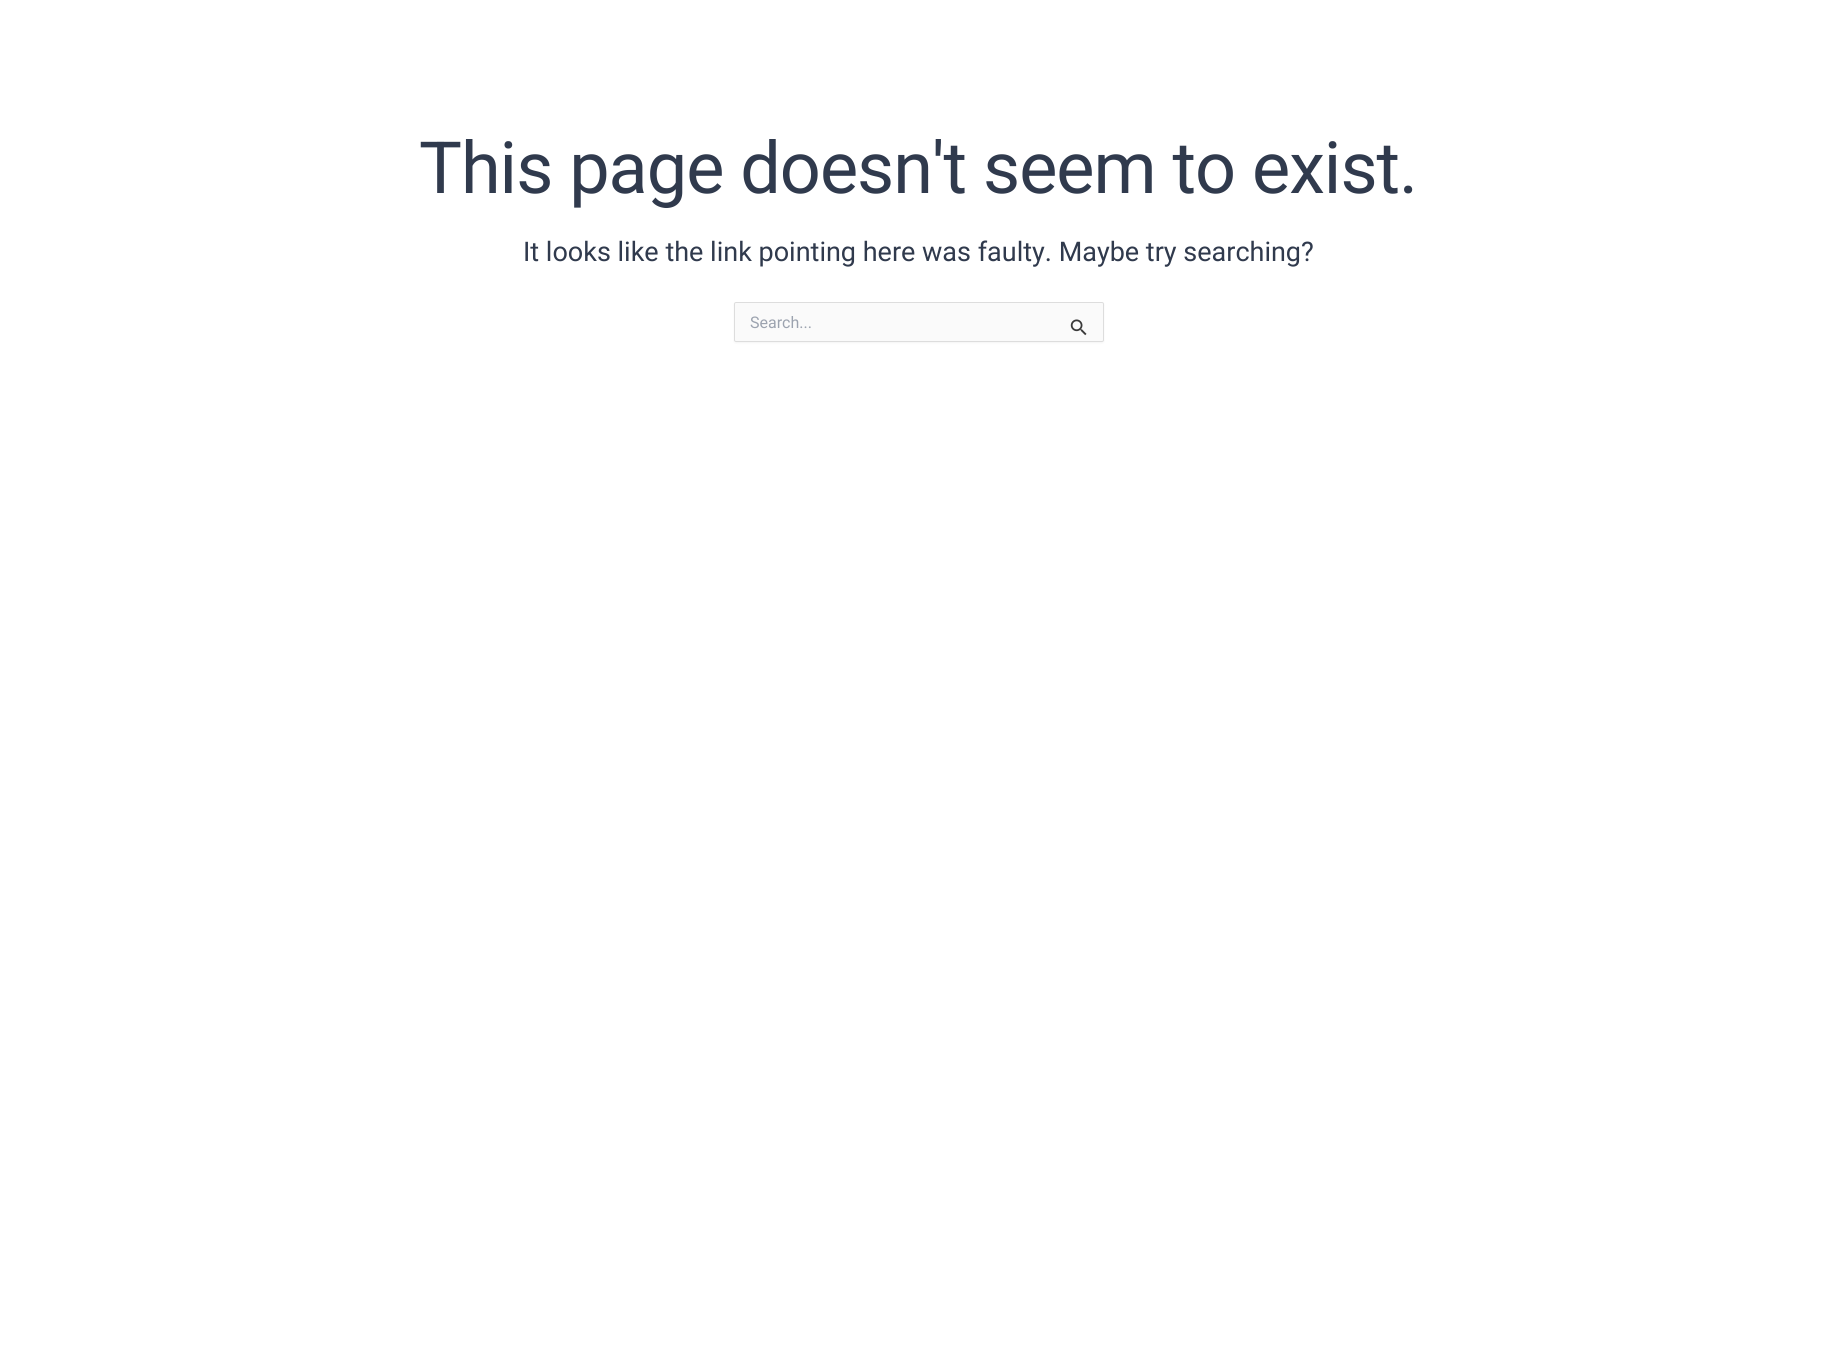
import math
import cairo

surface = cairo.ImageSurface(cairo.FORMAT_RGB24, 1837, 1357)
c = cairo.Context(surface)
options = cairo.FontOptions()
options.set_hint_metrics(cairo.HINT_METRICS_OFF)
options.set_hint_style(cairo.HINT_STYLE_NONE)
c.set_font_options(options)
c.set_miter_limit(4)
def C(code):
 c.set_source_rgb(*(v / 255 for v in bytes.fromhex(code[-6:])))
def F(family, size, italic, bold):
 c.select_font_face(family, cairo.FONT_SLANT_ITALIC if italic else cairo.FONT_SLANT_NORMAL, cairo.FONT_WEIGHT_BOLD if bold else cairo.FONT_WEIGHT_NORMAL)
 c.set_font_size(size)
def T(x, y, s):
 c.move_to(x, y)
 c.show_text(s)
def L(x, y, s, letter, word):
 c.move_to(x, y)
 for ch in s:
  c.show_text(ch)
  c.rel_move_to(letter + word * (ch == ' '), 0)
def Q(x, y, w, h, r):
 c.new_sub_path()
 for i, (u, v) in enumerate([(x + w - r, y + h - r), (x + r, y + h - r), (x + r, y + r), (x + w - r, y + r)]):
  c.arc(u, v, r, i * math.pi / 2, (i + 1) * math.pi / 2)
 c.close_path()
def S(x, y, w, h, r, blur, alpha):
 c.push_group_with_content(cairo.CONTENT_ALPHA)
 c.set_operator(cairo.OPERATOR_SOURCE)
 for i in range(15, -16, -2):
  e = blur * i / 6
  if min(w, h) + 2 * e > 0:
   c.set_source_rgba(0, 0, 0, alpha * math.erfc((i - 1) / 8.5) / 2)
   Q(x - e, y - e, w + 2 * e, h + 2 * e, max(0, min(r + e + blur * .6, min(w, h) / 2 + e)))
   c.fill()
 c.mask(c.pop_group())
def I(path, x, y, w, h):
 c.save()
 c.set_source_surface(cairo.ImageSurface.create_from_png(path), x, y)
 c.rectangle(x, y, w, h)
 c.fill()
 c.restore()
C('ffffff')
c.paint()
F('Roboto',72,0,0)
C('303a4d')
L(419,193,'This page doesn\'t seem to exist.',-1,0)
F('Roboto',27,0,0)
T(523,261,'It looks like the link pointing here was faulty. Maybe try searching?')
C('000000')
S(734,303,370,40,2,1,.05)
C('fafafa')
Q(734.5,302.5,369,39,1.5)
c.fill_preserve()
C('dddddd')
c.set_line_width(1)
c.stroke()
F('Roboto',16,0,0)
C('9ca3af')
T(750,328,'Search...')
I('1.png',1070,319,17,17)
surface.write_to_png('o.png')
